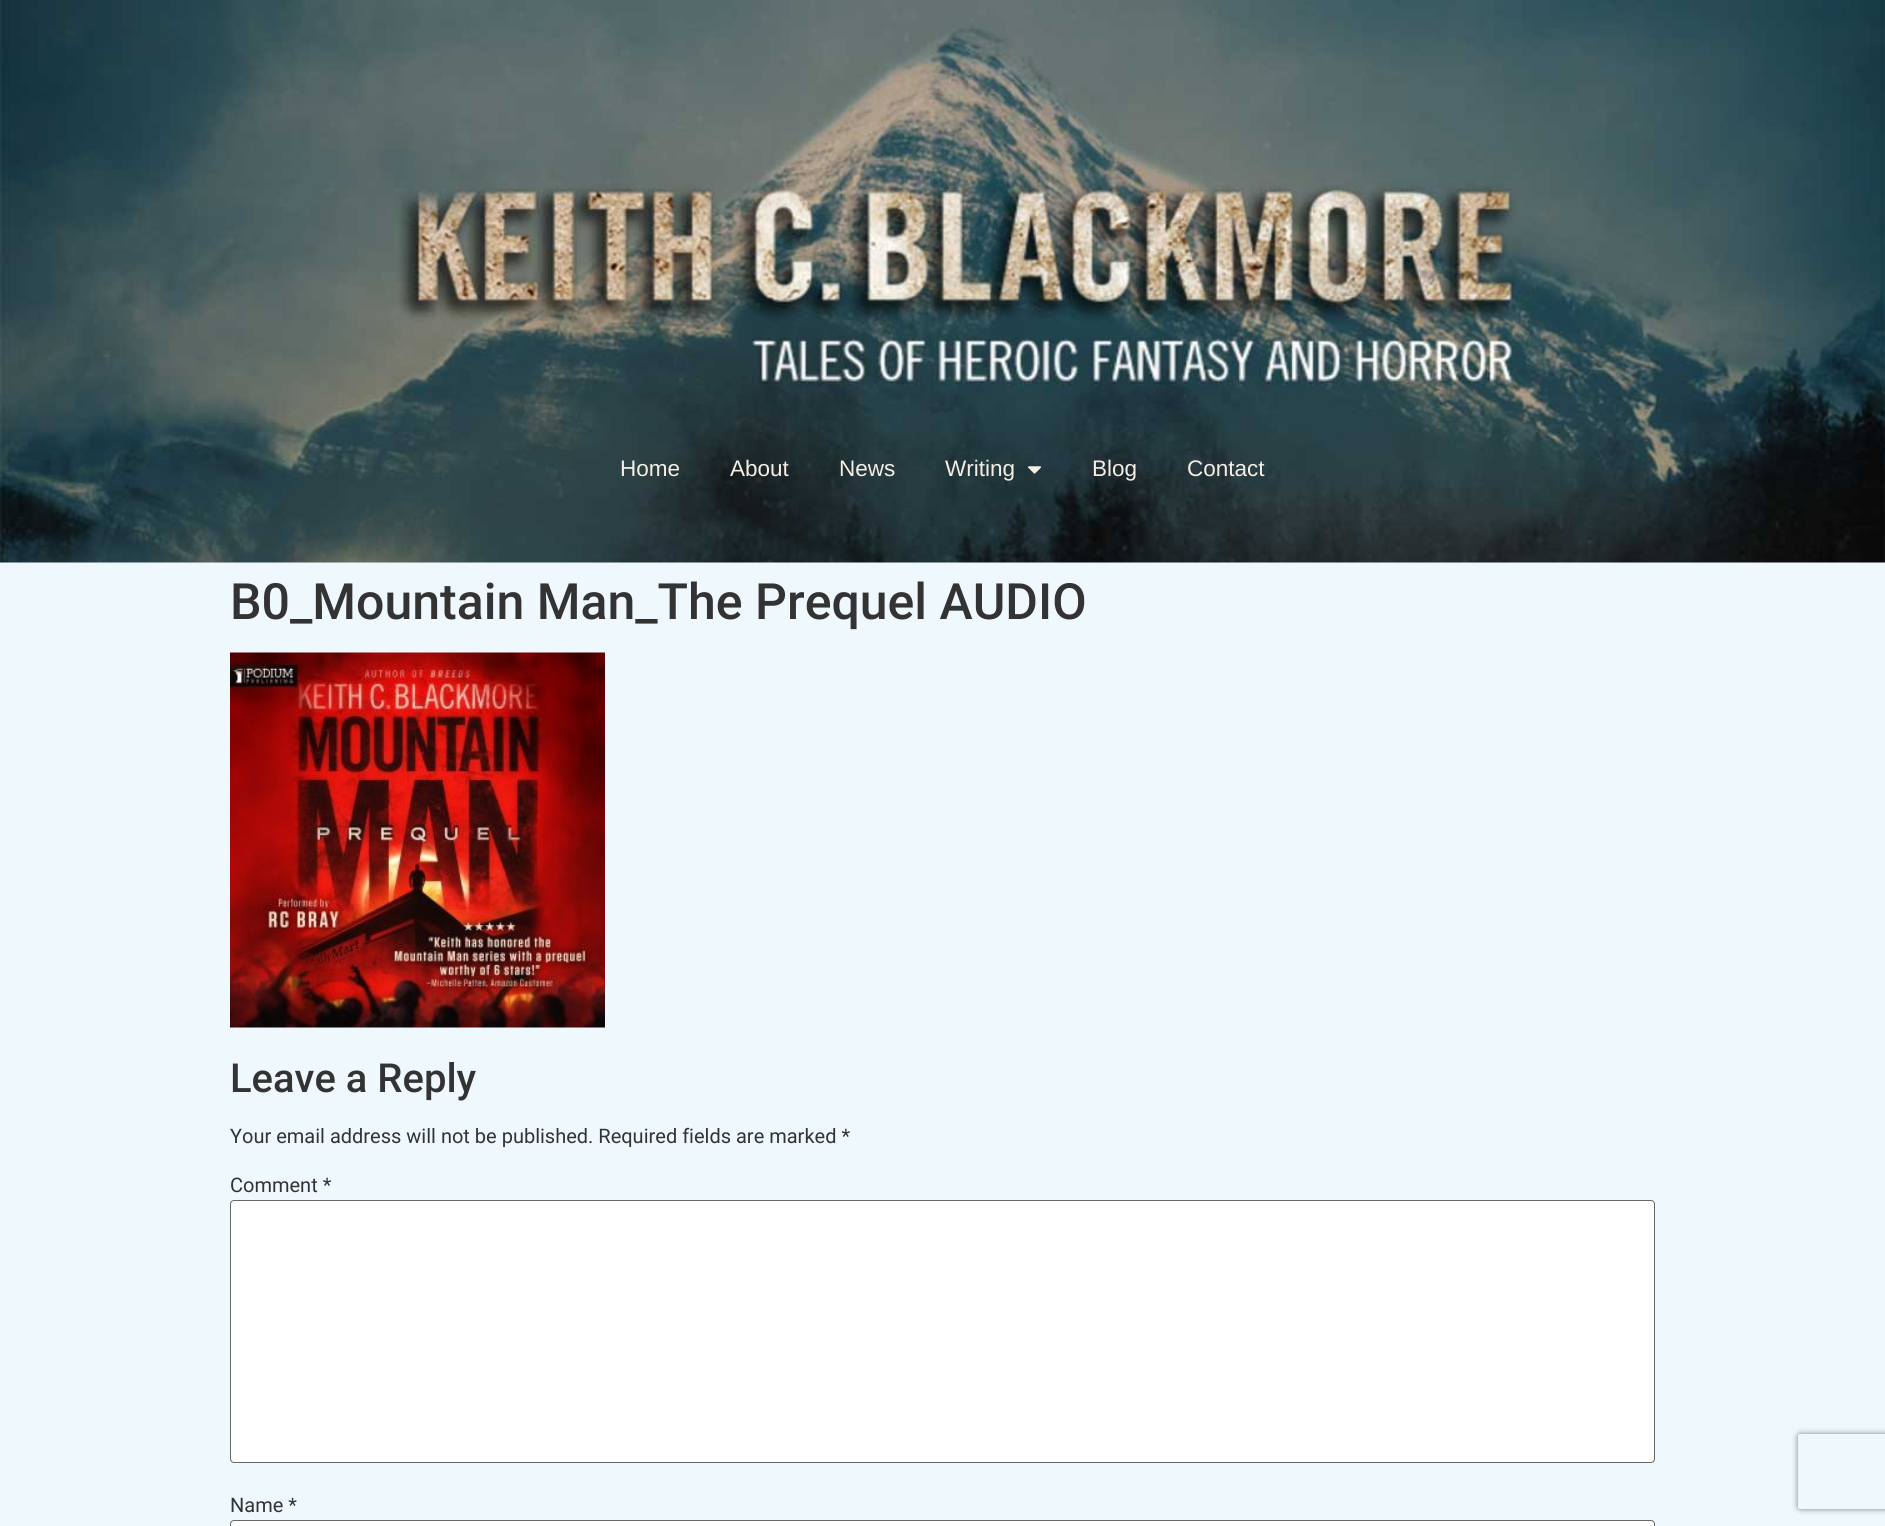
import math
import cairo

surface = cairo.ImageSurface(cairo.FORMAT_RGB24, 1885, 1526)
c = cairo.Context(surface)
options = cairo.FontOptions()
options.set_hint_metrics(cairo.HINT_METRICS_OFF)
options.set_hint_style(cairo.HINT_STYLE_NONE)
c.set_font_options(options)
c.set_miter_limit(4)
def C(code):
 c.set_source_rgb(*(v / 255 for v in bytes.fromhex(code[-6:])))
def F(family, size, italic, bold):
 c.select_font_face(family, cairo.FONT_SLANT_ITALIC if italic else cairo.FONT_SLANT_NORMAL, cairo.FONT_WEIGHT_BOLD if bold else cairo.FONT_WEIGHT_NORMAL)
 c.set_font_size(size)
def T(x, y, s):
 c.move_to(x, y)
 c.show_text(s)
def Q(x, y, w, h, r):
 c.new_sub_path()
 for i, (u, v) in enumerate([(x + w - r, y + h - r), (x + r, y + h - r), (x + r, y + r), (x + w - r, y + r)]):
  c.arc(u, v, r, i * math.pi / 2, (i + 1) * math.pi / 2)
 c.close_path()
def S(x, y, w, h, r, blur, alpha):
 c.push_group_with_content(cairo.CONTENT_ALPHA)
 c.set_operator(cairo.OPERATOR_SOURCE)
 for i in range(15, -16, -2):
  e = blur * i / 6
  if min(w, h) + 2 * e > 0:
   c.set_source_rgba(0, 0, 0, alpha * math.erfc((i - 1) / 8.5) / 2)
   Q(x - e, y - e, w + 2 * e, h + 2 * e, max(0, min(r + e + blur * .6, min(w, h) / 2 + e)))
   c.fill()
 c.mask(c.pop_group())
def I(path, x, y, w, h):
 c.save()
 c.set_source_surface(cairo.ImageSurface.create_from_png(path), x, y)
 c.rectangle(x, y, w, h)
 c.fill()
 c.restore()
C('eff8fc')
c.paint()
I('1.png',0,0,1885,563)
F('Liberation Sans',22.5,0,0)
C('f6eee2')
T(620,476,'Home')
T(730,476,'About')
T(839,476,'News')
T(945,476,'Writing')
I('2.png',1028,466,13,8)
T(1092,476,'Blog')
T(1187,476,'Contact')
F('Roboto Medium',50,0,0)
C('333333')
T(230,619,'B0_Mountain Man_The Prequel AUDIO')
I('3.png',230,652,375,376)
F('Roboto Medium',40,0,0)
T(230,1092,'Leave a Reply')
F('Roboto',20,0,0)
T(230,1143,'Your email address will not be published. Required fields are marked *')
T(230,1192,'Comment *')
C('ffffff')
Q(230.5,1200.5,1424,262,3.5)
c.fill_preserve()
C('666666')
c.set_line_width(1)
c.stroke()
C('333333')
T(230,1512,'Name *')
C('ffffff')
Q(230.5,1520.5,1424,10,3.5)
c.fill_preserve()
C('666666')
c.stroke()
c.save()
c.set_fill_rule(cairo.FILL_RULE_EVEN_ODD)
c.new_path()
c.move_to(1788,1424)
c.line_to(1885,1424)
c.line_to(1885,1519)
c.line_to(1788,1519)
c.close_path()
c.move_to(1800.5,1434)
c.line_to(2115.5,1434)
c.curve_to(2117,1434,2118,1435,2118,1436.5)
c.line_to(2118,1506.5)
c.curve_to(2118,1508,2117,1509,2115.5,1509)
c.line_to(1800.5,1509)
c.curve_to(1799,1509,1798,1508,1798,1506.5)
c.line_to(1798,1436.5)
c.curve_to(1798,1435,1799,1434,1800.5,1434)
c.close_path()
c.clip()
C('808080')
S(1798,1434,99,75,2.5,3,1)
c.restore()
surface.write_to_png('o.png')
